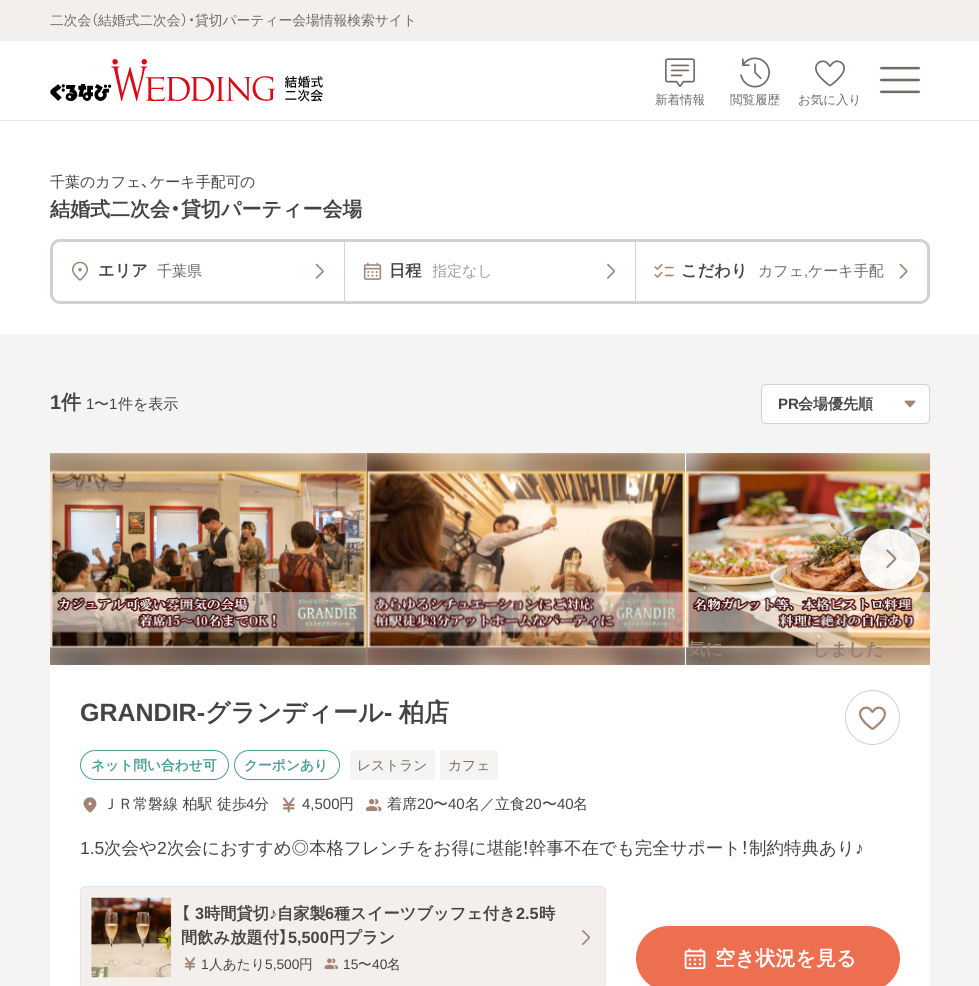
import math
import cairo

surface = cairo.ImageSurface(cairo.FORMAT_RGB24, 979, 986)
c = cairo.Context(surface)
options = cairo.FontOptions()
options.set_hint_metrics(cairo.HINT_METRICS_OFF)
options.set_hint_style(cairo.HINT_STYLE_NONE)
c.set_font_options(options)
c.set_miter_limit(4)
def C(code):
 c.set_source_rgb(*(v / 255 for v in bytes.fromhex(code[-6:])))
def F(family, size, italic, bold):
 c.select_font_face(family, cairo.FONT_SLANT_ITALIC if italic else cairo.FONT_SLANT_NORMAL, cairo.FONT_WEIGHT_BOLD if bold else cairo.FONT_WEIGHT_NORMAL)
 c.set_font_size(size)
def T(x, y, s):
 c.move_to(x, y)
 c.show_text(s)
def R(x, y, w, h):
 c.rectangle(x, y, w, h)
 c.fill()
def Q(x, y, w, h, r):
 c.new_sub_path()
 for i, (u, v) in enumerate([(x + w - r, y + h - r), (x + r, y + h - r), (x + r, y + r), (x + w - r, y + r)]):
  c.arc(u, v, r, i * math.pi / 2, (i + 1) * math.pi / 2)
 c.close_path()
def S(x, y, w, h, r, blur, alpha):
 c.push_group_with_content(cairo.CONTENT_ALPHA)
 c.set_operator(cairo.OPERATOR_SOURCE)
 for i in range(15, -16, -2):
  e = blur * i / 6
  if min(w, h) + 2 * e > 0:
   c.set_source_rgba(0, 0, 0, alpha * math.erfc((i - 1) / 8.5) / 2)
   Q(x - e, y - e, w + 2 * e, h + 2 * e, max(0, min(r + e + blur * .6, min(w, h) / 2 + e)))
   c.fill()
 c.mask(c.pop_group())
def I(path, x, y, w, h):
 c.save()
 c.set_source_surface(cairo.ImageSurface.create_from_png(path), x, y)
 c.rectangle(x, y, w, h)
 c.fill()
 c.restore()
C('ffffff')
c.paint()
C('f3efec')
R(0,0,979,41)
F('WenQuanYi Zen Hei Medium',13.75,0,0)
C('706a65')
T(50,25,'二次会')
F('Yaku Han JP',13.75,0,0)
T(91,25,'（')
F('WenQuanYi Zen Hei Medium',13.75,0,0)
T(98,25,'結婚式二次会')
F('Yaku Han JP',13.75,0,0)
T(181,25,'）・')
F('WenQuanYi Zen Hei Medium',13.75,0,0)
T(195,25,'貸切パーティー会場情報検索サイト')
C('e7e5e4')
R(0,120,979,1)
I('1.png',50,59,273,43)
I('2.png',880,66,40,28)
I('3.png',665,58,30,29)
F('WenQuanYi Zen Hei Medium',12.5,0,0)
C('706a65')
T(655,104,'新着情報')
I('4.png',740,57,30,31)
T(730,104,'閲覧履歴')
I('5.png',815,60,30,27)
T(798,104,'お気に入り')
F('WenQuanYi Zen Hei Medium',15,0,0)
C('464443')
T(50,187,'千葉のカフェ')
F('Yaku Han JP',15,0,0)
T(141,187,'、')
F('WenQuanYi Zen Hei Medium',15,0,0)
T(150,187,'ケーキ手配可')
T(240,187,'の')
F('WenQuanYi Zen Hei',20,0,1)
T(50,216,'結婚式二次会')
F('Yaku Han JP SemiBold',20,0,0)
T(170,216,'・')
F('WenQuanYi Zen Hei',20,0,1)
T(181,216,'貸切パーティー会場')
Q(51.5,240.5,877,62,8.5)
C('d4d0cd')
c.set_line_width(3)
c.stroke()
R(344,241,1,60)
I('6.png',71,261,18,20)
F('WenQuanYi Zen Hei',16.25,0,1)
C('464443')
T(98,276,'エリア')
F('WenQuanYi Zen Hei Medium',15,0,0)
C('706a65')
T(157,276,'千葉県')
I('7.png',315,263,9,16)
C('d4d0cd')
R(635,241,1,60)
I('8.png',363,262,19,18)
F('WenQuanYi Zen Hei',16.25,0,1)
C('464443')
T(389,276,'日程')
c.save()
c.rectangle(433,260,167,23)
c.clip()
F('WenQuanYi Zen Hei Medium',15,0,0)
C('a09d9a')
T(432,276,'指定なし')
c.restore()
I('9.png',607,263,8,16)
I('10.png',654,264,20,14)
T(681,276,'こだわり')
F('WenQuanYi Zen Hei Medium',15,0,0)
C('706a65')
T(758,276,'カフェ')
F('Liberation Sans',15,0,0)
T(804,276,',')
F('WenQuanYi Zen Hei Medium',15,0,0)
T(808,276,'ケーキ手配')
I('11.png',899,263,9,16)
C('f5f4f3')
R(0,334,979,652)
F('Liberation Sans',20,0,1)
C('464443')
T(50,409,'1')
F('WenQuanYi Zen Hei',20,0,1)
T(61,409,'件')
F('Liberation Sans',15,0,0)
T(86,409,'1')
F('WenQuanYi Zen Hei Medium',15,0,0)
T(94,409,'〜')
F('Liberation Sans',15,0,0)
T(109,409,'1')
F('WenQuanYi Zen Hei Medium',15,0,0)
T(118,409,'件を表示')
C('ffffff')
Q(761.5,384.5,168,39,4.5)
c.fill_preserve()
C('d4d0cd')
c.set_line_width(1)
c.stroke()
F('Liberation Sans',15,0,1)
C('464443')
T(778,409,'PR')
F('WenQuanYi Zen Hei',15,0,1)
T(798,409,'会場優先順')
I('12.png',904,400,12,8)
C('ffffff')
R(50,454,880,532)
I('13.png',50,453,317,212)
c.save()
c.rectangle(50,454,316,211)
c.clip()
C('464443')
S(34,443,349,232,0,12.5,.16)
c.restore()
I('14.png',50,470,317,178)
I('15.png',367,453,318,212)
c.save()
c.rectangle(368,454,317,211)
c.clip()
C('464443')
S(353,443,348,232,0,12.5,.16)
c.restore()
I('16.png',367,470,318,179)
I('17.png',686,453,244,212)
c.save()
c.rectangle(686,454,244,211)
c.clip()
C('464443')
S(670,443,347,232,0,12.5,.16)
c.restore()
I('18.png',686,470,244,178)
c.save()
c.set_fill_rule(cairo.FILL_RULE_EVEN_ODD)
c.new_path()
c.move_to(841,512)
c.line_to(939,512)
c.line_to(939,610)
c.line_to(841,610)
c.close_path()
c.move_to(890,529)
c.curve_to(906.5,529,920,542.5,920,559)
c.curve_to(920,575.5,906.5,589,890,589)
c.curve_to(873.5,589,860,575.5,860,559)
c.curve_to(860,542.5,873.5,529,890,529)
c.close_path()
c.clip()
C('464443')
S(860,531,60,60,30,6,.24)
c.restore()
c.set_source_rgba(1,1,1,0.92)
c.arc(890,559,30,0,2 * math.pi)
c.fill()
I('19.png',886,549,11,20)
F('WenQuanYi Zen Hei',17.5,0,1)
C('947f6f')
T(688,655,'気に')
T(812,655,'しました')
c.new_path()
c.arc(872.5,717.5,27,0,2 * math.pi)
C('d4d0cd')
c.stroke()
I('20.png',859,706,27,24)
F('Liberation Sans',25,0,1)
C('464443')
T(80,721,'GRANDIR‐')
F('WenQuanYi Zen Hei',25,0,1)
T(205,721,'グランディール')
F('Liberation Sans',25,0,1)
T(384,721,'‐')
F('WenQuanYi Zen Hei',25,0,1)
T(399,721,'柏店')
Q(80.5,750.5,148,29,14.5)
C('499c94')
c.stroke()
F('WenQuanYi Zen Hei',13.75,0,1)
T(91,770,'ネット問い合わせ可')
Q(234.5,750.5,105,29,14.5)
c.stroke()
T(244,770,'クーポンあり')
C('f5f4f3')
Q(350,750,85,30,2.5)
c.fill()
F('WenQuanYi Zen Hei Medium',13.75,0,0)
C('706a65')
T(357,770,'レストラン')
C('f5f4f3')
Q(440,750,58,30,2.5)
c.fill()
C('706a65')
T(448,770,'カフェ')
I('21.png',83,797,14,16)
F('WenQuanYi Zen Hei Medium',15,0,0)
C('464443')
T(103,809,'ＪＲ常磐線 柏駅 徒歩')
F('Liberation Sans',15,0,0)
T(246,809,'4')
F('WenQuanYi Zen Hei Medium',15,0,0)
T(254,809,'分')
I('22.png',282,797,13,16)
F('Liberation Sans',15,0,0)
T(302,809,'4,500')
F('WenQuanYi Zen Hei Medium',15,0,0)
T(339,809,'円')
I('23.png',366,799,16,13)
T(387,809,'着席')
F('Liberation Sans',15,0,0)
T(417,809,'20')
F('WenQuanYi Zen Hei Medium',15,0,0)
T(433,809,'〜')
F('Liberation Sans',15,0,0)
T(448,809,'40')
F('WenQuanYi Zen Hei Medium',15,0,0)
T(465,809,'名／立食')
F('Liberation Sans',15,0,0)
T(525,809,'20')
F('WenQuanYi Zen Hei Medium',15,0,0)
T(542,809,'〜')
F('Liberation Sans',15,0,0)
T(557,809,'40')
F('WenQuanYi Zen Hei Medium',15,0,0)
T(573,809,'名')
F('Liberation Sans',17.5,0,0)
T(80,854,'1.5')
F('WenQuanYi Zen Hei Medium',17.5,0,0)
T(104,854,'次会や')
F('Liberation Sans',17.5,0,0)
T(157,854,'2')
F('WenQuanYi Zen Hei Medium',17.5,0,0)
T(167,854,'次会におすすめ◎本格フレンチをお得に堪能')
F('Yaku Han JP',17.5,0,0)
T(522,854,'！')
F('WenQuanYi Zen Hei Medium',17.5,0,0)
T(529,854,'幹事不在でも完全サポート')
F('Yaku Han JP',17.5,0,0)
T(741,854,'！')
F('WenQuanYi Zen Hei Medium',17.5,0,0)
T(749,854,'制約特典あり')
F('Liberation Sans',17.5,0,0)
T(855,854,'♪')
C('f3efec')
Q(80.5,886.5,525,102,4.5)
c.fill_preserve()
C('e7e5e4')
c.stroke()
I('24.png',91,897,81,81)
F('Yaku Han JP SemiBold',16.25,0,0)
C('464443')
T(181,919,'【')
F('Liberation Sans',16.25,0,1)
T(195,919,'3')
F('WenQuanYi Zen Hei',16.25,0,1)
T(204,919,'時間貸切')
F('Liberation Sans',16.25,0,1)
T(269,919,'♪')
F('WenQuanYi Zen Hei',16.25,0,1)
T(277,919,'自家製')
F('Liberation Sans',16.25,0,1)
T(325,919,'6')
F('WenQuanYi Zen Hei',16.25,0,1)
T(334,919,'種スイーツブッフェ付き')
F('Liberation Sans',16.25,0,1)
T(516,919,'2.5')
F('WenQuanYi Zen Hei',16.25,0,1)
T(539,919,'時')
T(181,943,'間飲み放題付')
F('Yaku Han JP SemiBold',16.25,0,0)
T(279,943,'】')
F('Liberation Sans',16.25,0,1)
T(288,943,'5,500')
F('WenQuanYi Zen Hei',16.25,0,1)
T(329,943,'円プラン')
I('25.png',185,957,10,14)
F('Liberation Sans',13.75,0,0)
T(201,969,'1')
F('WenQuanYi Zen Hei Medium',13.75,0,0)
T(209,969,'人あたり')
F('Liberation Sans',13.75,0,0)
T(265,969,'5,500')
F('WenQuanYi Zen Hei Medium',13.75,0,0)
T(299,969,'円')
I('26.png',324,958,14,12)
F('Liberation Sans',13.75,0,0)
T(343,969,'15')
F('WenQuanYi Zen Hei Medium',13.75,0,0)
T(358,969,'〜')
F('Liberation Sans',13.75,0,0)
T(372,969,'40')
F('WenQuanYi Zen Hei Medium',13.75,0,0)
T(387,969,'名')
I('27.png',582,930,8,15)
C('ec6f50')
Q(636,926,264,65,32.5)
c.fill()
I('28.png',684,948,22,22)
F('WenQuanYi Zen Hei',20,0,1)
C('ffffff')
T(715,965,'空き状況を見る')
surface.write_to_png('o.png')
